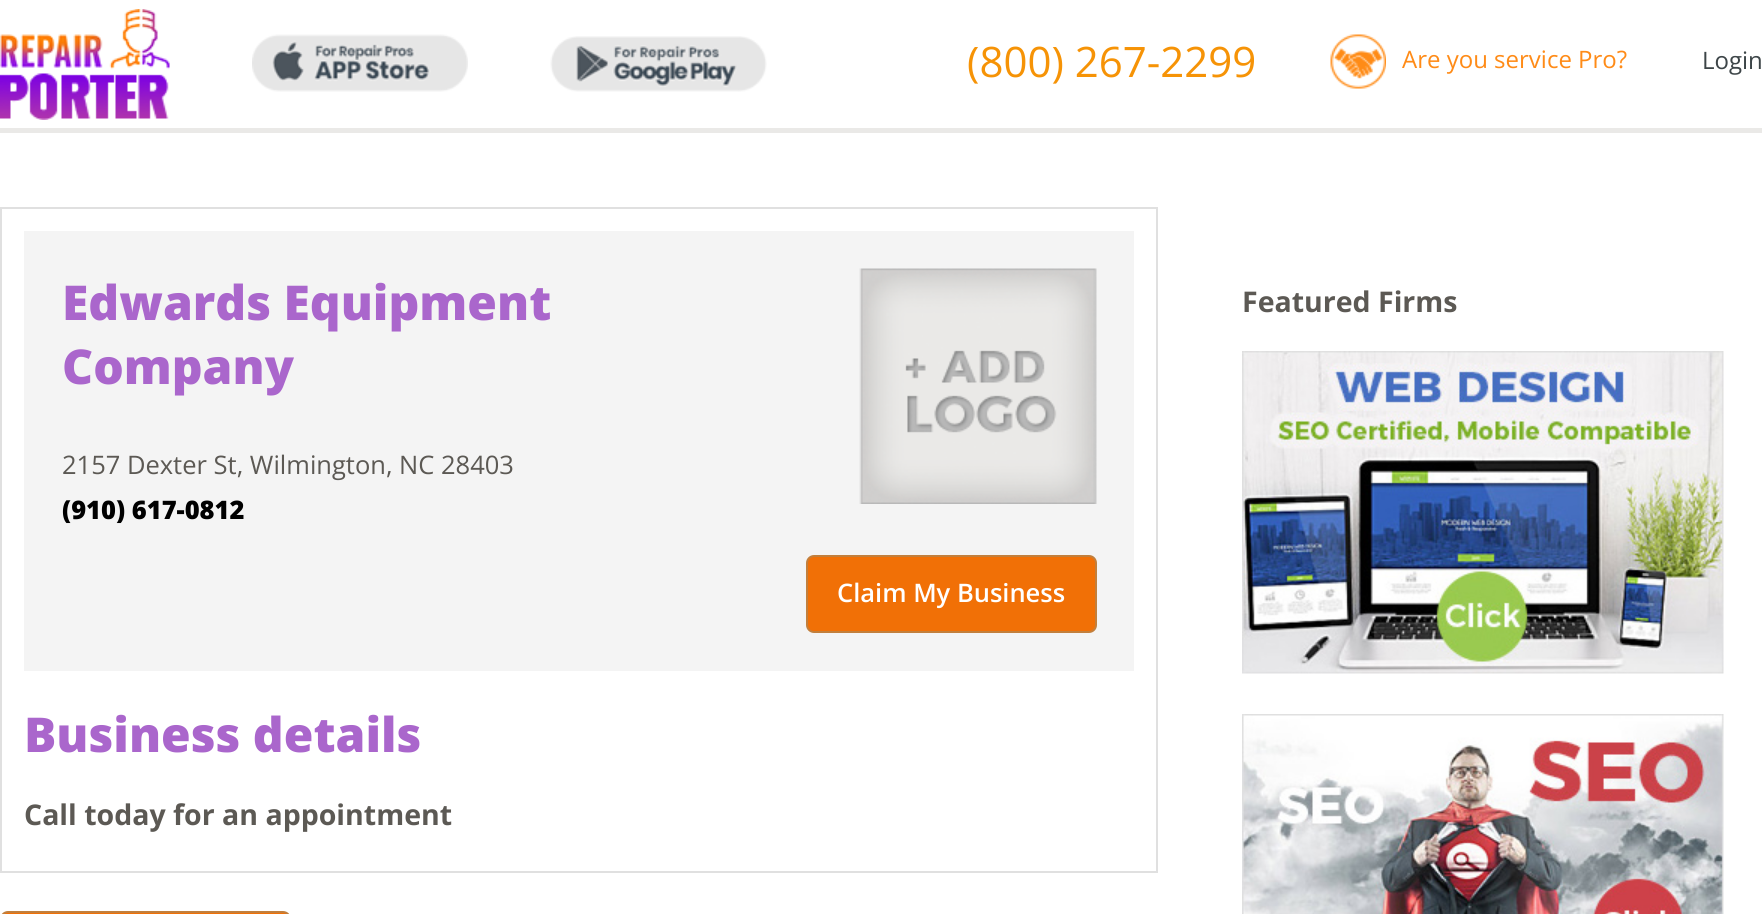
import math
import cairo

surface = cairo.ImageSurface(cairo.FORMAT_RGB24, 1762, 914)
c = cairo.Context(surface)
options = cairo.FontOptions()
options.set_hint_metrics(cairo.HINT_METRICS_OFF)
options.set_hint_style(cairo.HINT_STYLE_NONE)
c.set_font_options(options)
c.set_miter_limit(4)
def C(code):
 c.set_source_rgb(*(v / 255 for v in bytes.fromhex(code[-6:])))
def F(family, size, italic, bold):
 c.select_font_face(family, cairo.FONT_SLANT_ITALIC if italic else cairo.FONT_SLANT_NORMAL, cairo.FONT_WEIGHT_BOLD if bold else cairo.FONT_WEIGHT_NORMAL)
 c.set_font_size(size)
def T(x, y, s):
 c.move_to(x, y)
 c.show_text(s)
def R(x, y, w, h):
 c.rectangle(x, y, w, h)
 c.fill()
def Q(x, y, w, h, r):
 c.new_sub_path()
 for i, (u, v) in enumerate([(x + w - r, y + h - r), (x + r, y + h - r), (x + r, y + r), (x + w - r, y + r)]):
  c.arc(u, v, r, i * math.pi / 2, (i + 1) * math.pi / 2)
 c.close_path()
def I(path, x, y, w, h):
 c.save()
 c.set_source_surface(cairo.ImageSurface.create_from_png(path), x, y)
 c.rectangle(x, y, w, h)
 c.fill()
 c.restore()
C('ffffff')
c.paint()
I('1.png',0,9,170,111)
I('2.png',252,34,216,58)
I('3.png',550,36,217,56)
F('Open Sans',42,0,0)
C('f69306')
T(967,77,'(800) 267-2299')
I('4.png',1330,34,56,55)
F('Open Sans',24,0,0)
C('ff8b17')
T(1402,68,'Are you service Pro?')
C('3d4548')
T(1702,69,'Login')
C('eae9e7')
R(0,128,1762,5)
c.rectangle(1,208,1156,664)
C('e0e0e0')
c.stroke()
C('f4f4f4')
R(24,231,1110,440)
F('Open Sans ExtraBold',48,0,0)
C('aa66cc')
T(62,320,'Edwards Equipment')
T(62,384,'Company')
F('Open Sans',25.5,0,0)
C('5c5954')
T(62,474,'2157 Dexter St, Wilmington, NC 28403')
F('Open Sans ExtraBold',25.5,0,0)
C('000000')
T(62,519,'(910) 617-0812')
I('5.png',859,268,238,236)
C('f17006')
Q(807,556,289,76,7)
c.fill_preserve()
C('c27f3c')
c.stroke()
F('Open Sans SemiBold',25.5,0,0)
C('ffffff')
T(837,602,'Claim My Business')
F('Open Sans ExtraBold',48,0,0)
C('aa66cc')
T(24,752,'Business details')
F('Open Sans',28.5,0,1)
C('5c5954')
T(24,825,'Call today for an appointment')
C('f17006')
Q(1,912,289,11,7)
c.fill_preserve()
C('c27f3c')
c.stroke()
C('5c5954')
T(1242,312,'Featured Firms')
I('6.png',1242,351,482,323)
I('7.png',1242,714,482,200)
surface.write_to_png('o.png')
